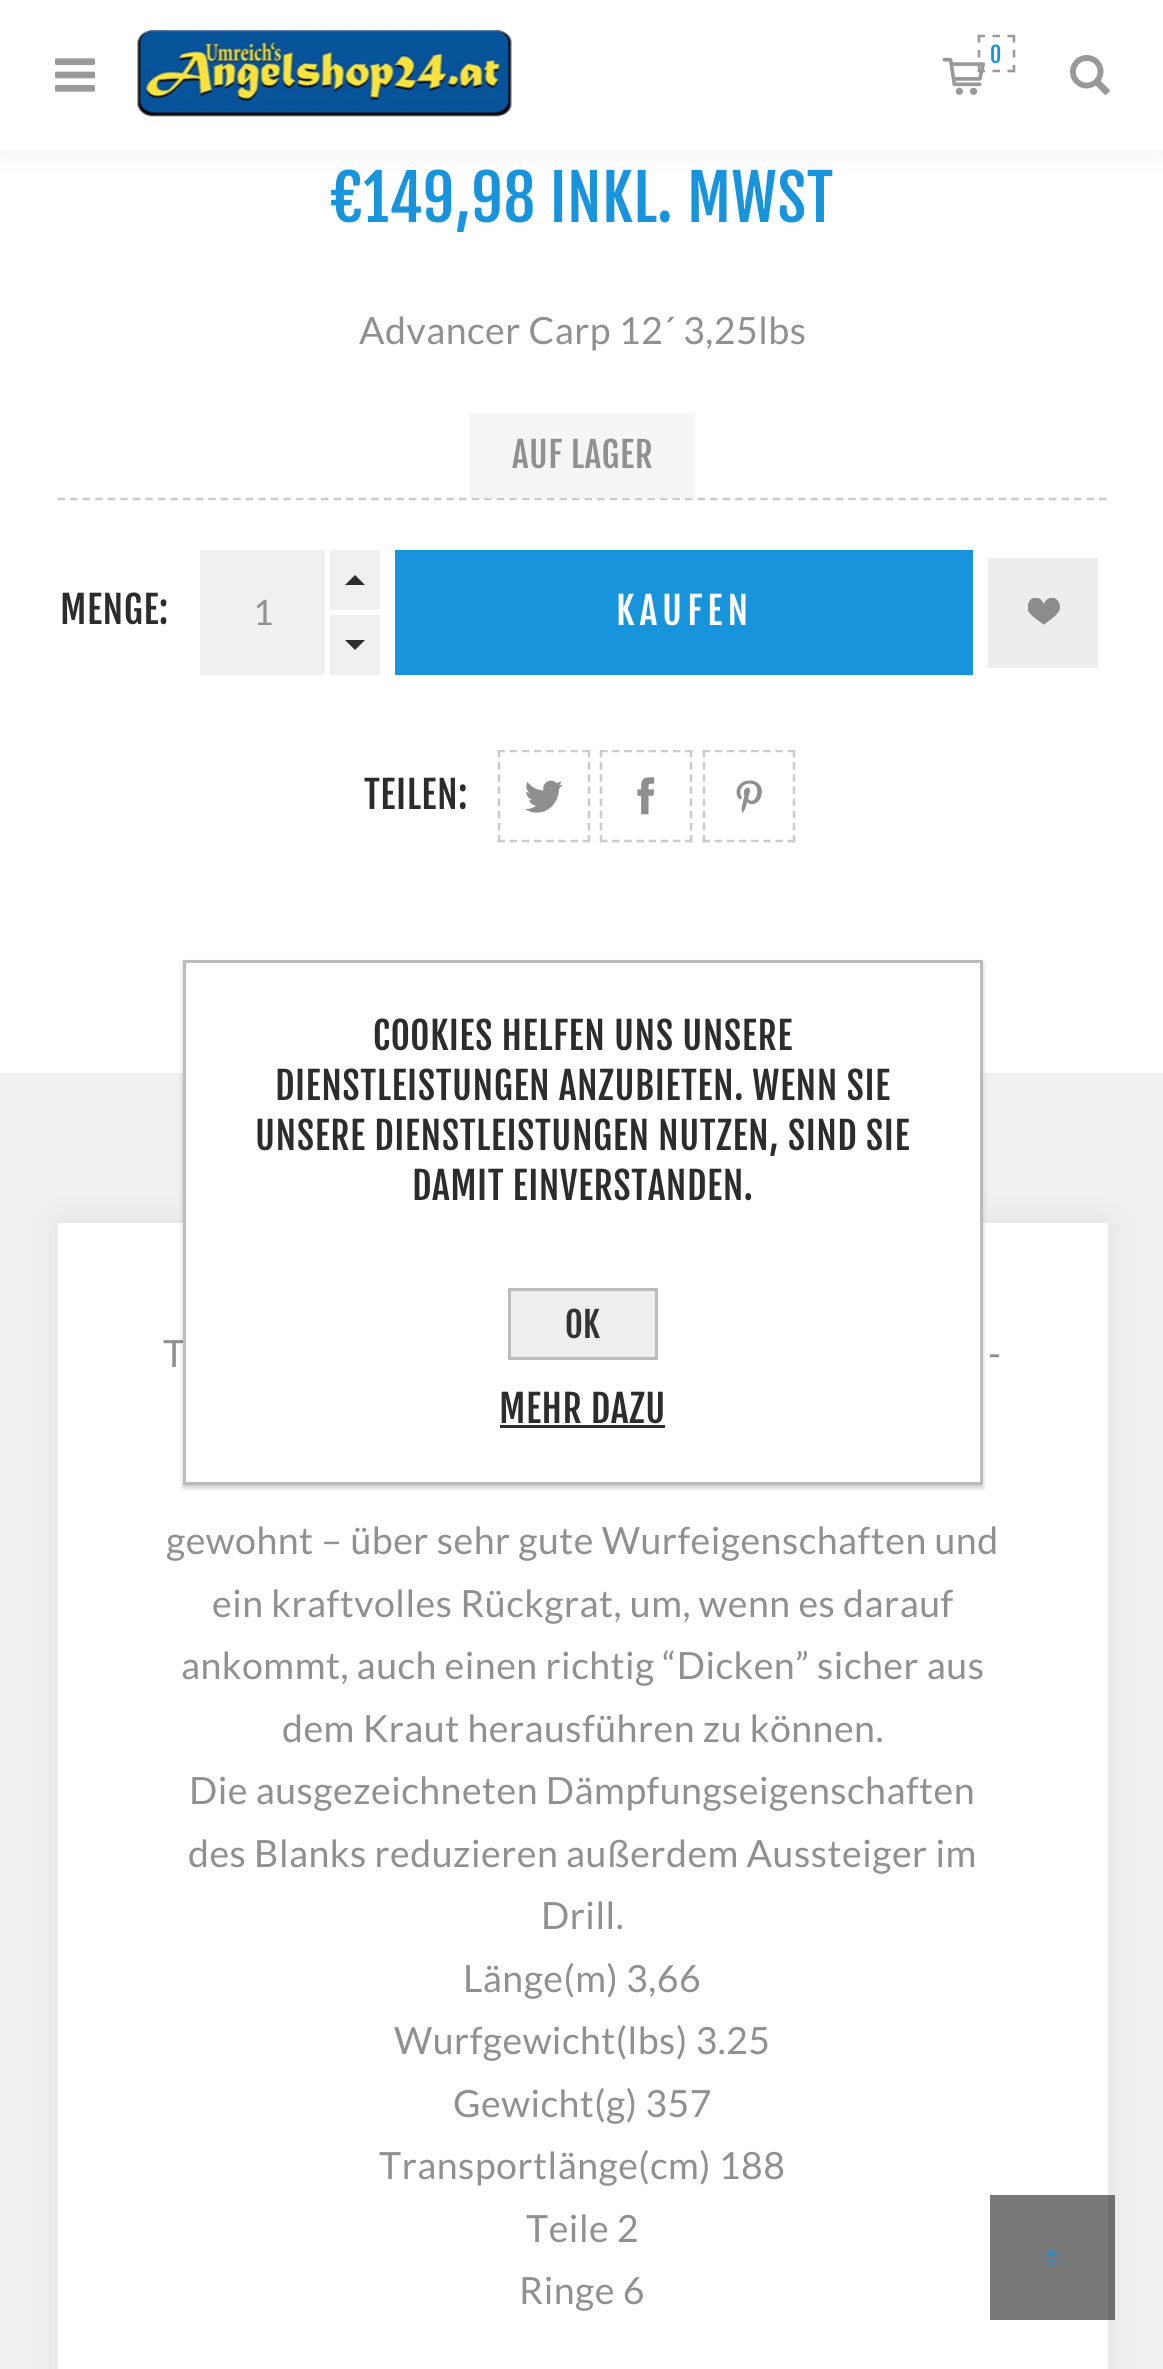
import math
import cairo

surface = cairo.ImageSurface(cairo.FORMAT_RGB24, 1163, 2369)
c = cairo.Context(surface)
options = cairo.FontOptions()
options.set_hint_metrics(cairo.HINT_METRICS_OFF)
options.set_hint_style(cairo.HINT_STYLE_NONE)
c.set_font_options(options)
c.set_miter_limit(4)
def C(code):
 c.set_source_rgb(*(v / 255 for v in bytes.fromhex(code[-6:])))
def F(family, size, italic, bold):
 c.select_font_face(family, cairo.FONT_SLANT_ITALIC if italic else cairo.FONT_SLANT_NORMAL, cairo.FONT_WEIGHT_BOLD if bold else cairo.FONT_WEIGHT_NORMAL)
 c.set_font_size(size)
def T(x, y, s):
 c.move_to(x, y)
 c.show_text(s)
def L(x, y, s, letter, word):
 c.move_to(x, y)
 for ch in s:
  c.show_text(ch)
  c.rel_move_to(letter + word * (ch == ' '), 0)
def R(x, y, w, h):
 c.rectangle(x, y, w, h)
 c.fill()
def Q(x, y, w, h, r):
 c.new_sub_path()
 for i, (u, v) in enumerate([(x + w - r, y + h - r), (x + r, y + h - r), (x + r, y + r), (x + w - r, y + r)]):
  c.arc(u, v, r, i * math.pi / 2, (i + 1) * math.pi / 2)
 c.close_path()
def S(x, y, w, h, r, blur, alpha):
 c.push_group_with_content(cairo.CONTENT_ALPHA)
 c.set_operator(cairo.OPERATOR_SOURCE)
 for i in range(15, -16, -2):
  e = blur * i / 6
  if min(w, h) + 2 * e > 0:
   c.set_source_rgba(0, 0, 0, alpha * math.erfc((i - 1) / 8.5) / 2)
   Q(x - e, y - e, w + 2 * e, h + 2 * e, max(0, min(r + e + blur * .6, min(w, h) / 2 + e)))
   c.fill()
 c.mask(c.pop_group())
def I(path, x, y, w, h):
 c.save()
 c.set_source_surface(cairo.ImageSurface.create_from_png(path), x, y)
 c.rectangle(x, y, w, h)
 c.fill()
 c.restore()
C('f0f0f0')
c.paint()
C('ffffff')
R(0,150,1163,923)
C('000000')
S(0,0,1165,150,0,17.5,.06)
C('ffffff')
R(0,0,1163,150)
I('1.png',55,58,40,34)
I('2.png',137,30,375,87)
I('3.png',942,57,43,38)
c.new_path()
c.move_to(977.5,36)
c.line_to(985,36)
c.move_to(992.5,36)
c.line_to(1000,36)
c.move_to(1007.5,36)
c.line_to(1015,36)
c.move_to(1014,35)
c.line_to(1014,42.5)
c.move_to(1014,50)
c.line_to(1014,57.5)
c.move_to(1014,65)
c.line_to(1014,72.5)
c.move_to(977.5,71)
c.line_to(985,71)
c.move_to(992.5,71)
c.line_to(1000,71)
c.move_to(1007.5,71)
c.line_to(1015,71)
c.move_to(979,35)
c.line_to(979,42.5)
c.move_to(979,50)
c.line_to(979,57.5)
c.move_to(979,65)
c.line_to(979,72.5)
C('999999')
c.set_line_width(2.5)
c.stroke()
F('Fjalla One',22,0,0)
C('1894dc')
L(990,63,'0',.5,0)
I('4.png',1070,55,40,40)
F('Fjalla One',62.5,0,0)
L(331,222,'€149,98 INKL. MWST',.5,0)
F('Lato',37.5,0,0)
C('909090')
L(359,344,'Advancer Carp 12´ 3,25lbs',.5,0)
c.new_path()
c.move_to(57.5,499)
c.line_to(1107.5,499)
C('cccccc')
c.set_dash([7.5,5.05])
c.stroke()
C('f5f5f5')
R(470,413,225,85)
F('Fjalla One',35,0,0)
C('909090')
L(512,468,'AUF LAGER',.5,0)
F('Fjalla One',37.5,0,0)
C('2c2c2c')
L(60,624,'MENGE:',.5,0)
C('f0f0f0')
R(200,550,125,125)
F('Lato',35,0,0)
C('909090')
T(253,625,'1')
C('f0f0f0')
R(330,550,50,60)
C('2c2c2c')
c.new_path()
c.move_to(365,585)
c.line_to(345,585)
c.line_to(355,575)
c.close_path()
c.fill()
C('f0f0f0')
R(330,615,50,60)
C('2c2c2c')
c.new_path()
c.move_to(345,640)
c.line_to(365,640)
c.line_to(355,650)
c.close_path()
c.fill()
C('1894dc')
R(395,550,578,125)
F('Fjalla One',37.5,0,0)
C('ffffff')
L(616,625,'KAUFEN',5,0)
C('ededed')
R(988,558,110,110)
I('5.png',1028,598,32,27)
C('2c2c2c')
L(364,809,'TEILEN:',.5,0)
c.save()
c.rectangle(493,750,307,98)
c.clip()
c.new_path()
c.move_to(497.5,751)
c.line_to(590,751)
C('cccccc')
c.set_dash([7.5,4.65])
c.stroke()
c.restore()
c.new_path()
c.move_to(589,750)
c.line_to(589,842.5)
C('cccccc')
c.set_dash([7.5,4.65])
c.stroke()
c.new_path()
c.move_to(497.5,841)
c.line_to(590,841)
c.stroke()
c.new_path()
c.move_to(499,750)
c.line_to(499,842.5)
c.stroke()
I('6.png',525,780,38,33)
c.save()
c.rectangle(493,750,307,98)
c.clip()
c.new_path()
c.move_to(600,751)
c.line_to(692.5,751)
c.stroke()
c.restore()
c.new_path()
c.move_to(691,750)
c.line_to(691,842.5)
c.stroke()
c.new_path()
c.move_to(600,841)
c.line_to(692.5,841)
c.stroke()
c.new_path()
c.move_to(601,750)
c.line_to(601,842.5)
c.stroke()
I('7.png',637,777,18,38)
c.save()
c.rectangle(493,750,307,98)
c.clip()
c.new_path()
c.move_to(702.5,751)
c.line_to(795,751)
c.stroke()
c.restore()
c.new_path()
c.move_to(794,750)
c.line_to(794,842.5)
c.stroke()
c.new_path()
c.move_to(702.5,841)
c.line_to(795,841)
c.stroke()
c.new_path()
c.move_to(704,750)
c.line_to(704,842.5)
c.stroke()
I('8.png',736,780,26,33)
C('000000')
S(58,1223,1050,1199,0,17.5,.06)
C('ffffff')
R(58,1223,1050,1146)
F('Lato',37.5,0,0)
C('909090')
L(163,1367,'T',.5,0)
L(988,1367,'-',.5,0)
L(166,1554,'gewohnt – über sehr gute Wurfeigenschaften und',.5,0)
L(212,1617,'ein kraftvolles Rückgrat, um, wenn es darauf',.5,0)
L(181,1679,'ankommt, auch einen richtig “Dicken” sicher aus',.5,0)
L(282,1742,'dem Kraut herausführen zu können.',.5,0)
L(189,1804,'Die ausgezeichneten Dämpfungseigenschaften',.5,0)
L(188,1867,'des Blanks reduzieren außerdem Aussteiger im',.5,0)
L(541,1929,'Drill.',.5,0)
L(463,1992,'Länge(m) 3,66',.5,0)
L(394,2054,'Wurfgewicht(lbs) 3.25',.5,0)
L(453,2117,'Gewicht(g) 357',.5,0)
L(379,2179,'Transportlänge(cm) 188',.5,0)
L(526,2242,'Teile 2',.5,0)
L(519,2304,'Ringe 6',.5,0)
C('000000')
S(183,963,800,525,0,2.5,.2)
C('ffffff')
c.rectangle(184.5,961.5,797,522)
c.fill_preserve()
C('bbbbbb')
c.set_line_width(3)
c.set_dash([])
c.stroke()
F('Fjalla One',37.5,0,0)
C('2c2c2c')
L(373,1050,'COOKIES HELFEN UNS UNSERE',.5,0)
L(275,1100,'DIENSTLEISTUNGEN ANZUBIETEN. WENN SIE',.5,0)
L(255,1150,'UNSERE DIENSTLEISTUNGEN NUTZEN, SIND SIE',.5,0)
L(412,1200,'DAMIT EINVERSTANDEN.',.5,0)
C('eeeeee')
c.rectangle(509.5,1289.5,147,69)
c.fill_preserve()
C('bbbbbb')
c.stroke()
F('Fjalla One',35,0,0)
C('333333')
T(565,1338,'OK')
F('Fjalla One',37.5,0,0)
C('2c2c2c')
L(499,1423,'MEHR DAZU',.5,0)
R(500,1425,165,3)
c.set_source_rgba(0.122,0.122,0.122,0.6)
R(990,2195,125,125)
I('9.png',1043,2248,16,19)
surface.write_to_png('o.png')
